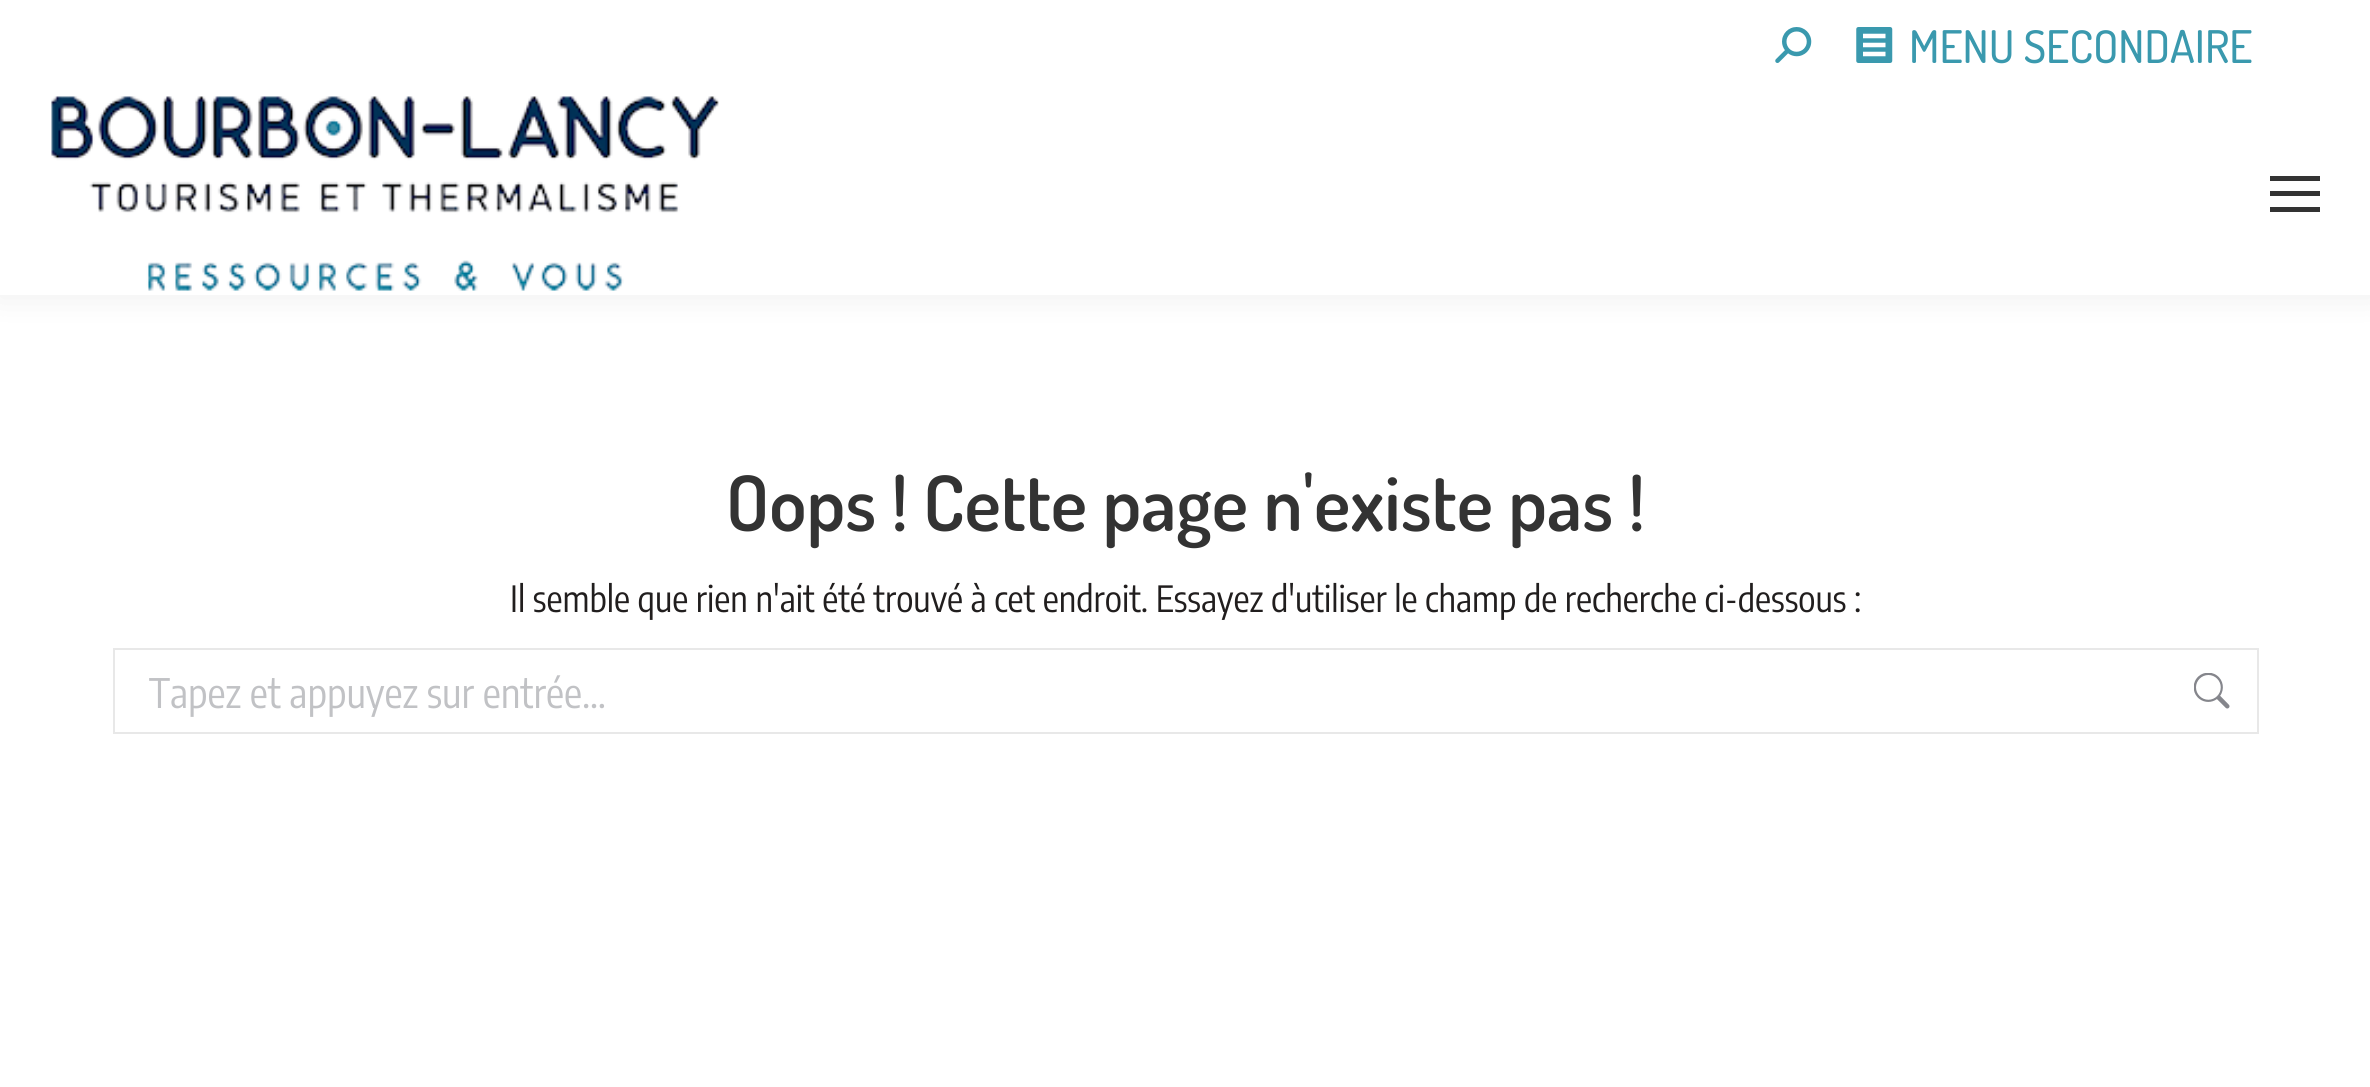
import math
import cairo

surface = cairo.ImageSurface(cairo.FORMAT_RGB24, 2370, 1087)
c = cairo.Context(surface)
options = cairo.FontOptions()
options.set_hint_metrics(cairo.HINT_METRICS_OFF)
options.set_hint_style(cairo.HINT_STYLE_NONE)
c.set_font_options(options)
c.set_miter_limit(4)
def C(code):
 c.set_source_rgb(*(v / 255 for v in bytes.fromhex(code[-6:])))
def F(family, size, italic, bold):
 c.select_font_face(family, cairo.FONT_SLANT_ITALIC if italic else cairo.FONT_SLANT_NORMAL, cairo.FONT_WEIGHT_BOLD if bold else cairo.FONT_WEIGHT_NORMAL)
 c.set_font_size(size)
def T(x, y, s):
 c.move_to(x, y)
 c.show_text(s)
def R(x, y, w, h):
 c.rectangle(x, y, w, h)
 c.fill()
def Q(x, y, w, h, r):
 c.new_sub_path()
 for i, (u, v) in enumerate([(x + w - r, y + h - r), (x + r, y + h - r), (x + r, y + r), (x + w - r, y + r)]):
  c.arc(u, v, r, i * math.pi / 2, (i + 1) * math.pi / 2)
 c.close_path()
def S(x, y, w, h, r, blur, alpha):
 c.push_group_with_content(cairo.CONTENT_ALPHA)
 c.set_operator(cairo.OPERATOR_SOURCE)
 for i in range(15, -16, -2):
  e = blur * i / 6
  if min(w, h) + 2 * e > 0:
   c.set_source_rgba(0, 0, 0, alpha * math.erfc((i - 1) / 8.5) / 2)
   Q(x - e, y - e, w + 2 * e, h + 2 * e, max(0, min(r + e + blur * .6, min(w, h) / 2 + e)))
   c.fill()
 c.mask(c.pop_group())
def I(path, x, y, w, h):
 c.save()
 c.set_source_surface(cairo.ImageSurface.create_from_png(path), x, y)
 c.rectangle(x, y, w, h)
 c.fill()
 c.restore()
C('ffffff')
c.paint()
C('000000')
S(-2,-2,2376,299,0,17,.07)
C('ffffff')
R(0,0,2370,295)
I('1.png',1775,27,37,36)
I('2.png',1856,27,37,36)
F('Dosis Medium',45,0,0)
C('3a99ae')
T(1909,63,'MENU SECONDAIRE')
I('3.png',51,96,668,195)
C('333333')
R(2270,176,50,5)
R(2270,191,50,5)
R(2270,207,50,5)
F('Dosis SemiBold',76.5,0,0)
T(726,531,'Oops ! Cette page n\'existe pas !')
F('Encode Sans Condensed',36,0,0)
C('211e1e')
T(510,612,'Il semble que rien n\'ait été trouvé à cet endroit. Essayez d\'utiliser le champ de recherche ci-dessous :')
c.rectangle(114,649,2144,84)
C('e8e8e8')
c.stroke()
c.save()
c.rectangle(149,666,2040,52)
c.clip()
F('Encode Sans Condensed',40.5,0,0)
C('c1c2c5')
T(149,708,'Tapez et appuyez sur entrée…')
c.restore()
I('4.png',2194,673,36,36)
surface.write_to_png('o.png')
